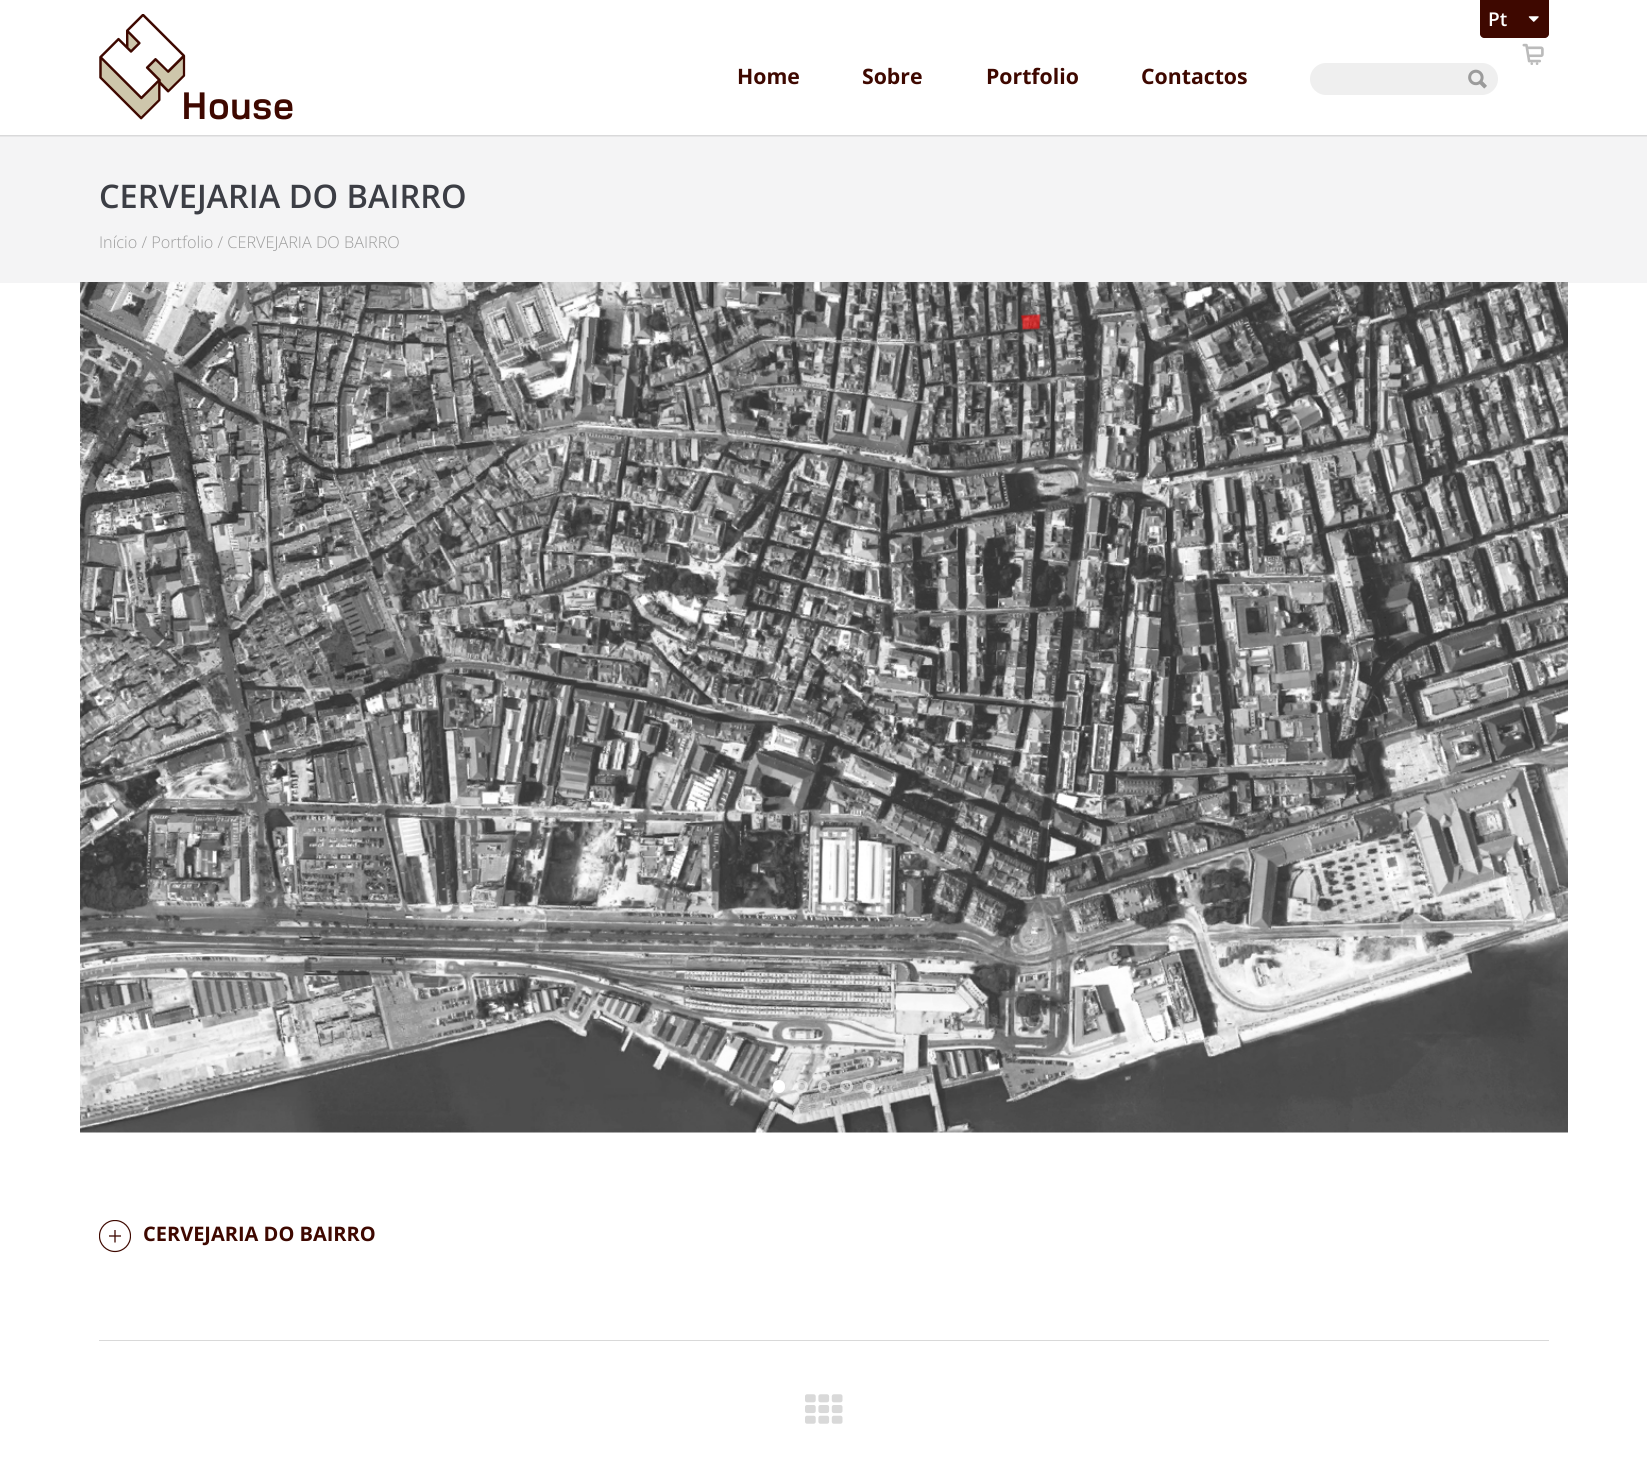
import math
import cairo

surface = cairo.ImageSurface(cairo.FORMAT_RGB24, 1647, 1462)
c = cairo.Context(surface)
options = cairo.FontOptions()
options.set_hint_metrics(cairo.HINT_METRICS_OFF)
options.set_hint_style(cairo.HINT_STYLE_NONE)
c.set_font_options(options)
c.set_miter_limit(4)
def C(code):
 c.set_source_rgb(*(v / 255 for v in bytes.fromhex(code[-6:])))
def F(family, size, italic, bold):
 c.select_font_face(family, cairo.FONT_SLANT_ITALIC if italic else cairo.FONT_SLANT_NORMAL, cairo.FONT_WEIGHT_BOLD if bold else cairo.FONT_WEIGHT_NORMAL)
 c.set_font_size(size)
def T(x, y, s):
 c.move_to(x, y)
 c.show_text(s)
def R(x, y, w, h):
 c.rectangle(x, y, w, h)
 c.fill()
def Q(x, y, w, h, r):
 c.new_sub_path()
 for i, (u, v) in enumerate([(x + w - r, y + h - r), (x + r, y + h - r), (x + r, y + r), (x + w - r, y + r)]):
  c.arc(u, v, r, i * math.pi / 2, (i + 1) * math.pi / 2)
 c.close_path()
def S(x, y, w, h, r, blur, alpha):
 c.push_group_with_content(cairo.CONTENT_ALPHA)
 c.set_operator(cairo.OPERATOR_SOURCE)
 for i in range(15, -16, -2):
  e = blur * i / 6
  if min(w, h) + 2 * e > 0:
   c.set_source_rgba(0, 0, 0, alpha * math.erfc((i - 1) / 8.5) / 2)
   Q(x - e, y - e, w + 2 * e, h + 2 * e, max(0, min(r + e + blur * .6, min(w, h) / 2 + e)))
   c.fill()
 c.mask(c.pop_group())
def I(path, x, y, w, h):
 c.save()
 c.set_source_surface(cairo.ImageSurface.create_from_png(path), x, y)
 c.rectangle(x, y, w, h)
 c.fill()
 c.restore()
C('ffffff')
c.paint()
C('f4f4f5')
R(0,135,1647,148)
c.save()
c.rectangle(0,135,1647,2)
c.clip()
C('000000')
S(-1,-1,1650,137,0,1,.16)
c.restore()
C('3e0800')
c.new_path()
c.move_to(1480,0)
c.line_to(1549,0)
c.line_to(1549,34)
c.curve_to(1549,36,1547,38,1545,38)
c.line_to(1484,38)
c.curve_to(1482,38,1480,36,1480,34)
c.close_path()
c.fill()
F('Open Sans SemiBold',19,0,0)
C('ffffff')
T(1488,26,'Pt')
I('1.png',1528,16,11,6)
I('2.png',99,14,194,106)
F('Open Sans',21.25,0,1)
C('3e0800')
T(737,84,'Home')
T(862,84,'Sobre')
T(986,84,'Portfolio')
T(1141,84,'Contactos')
I('3.png',1522,43,22,22)
C('efefef')
Q(1310,63,188,32,16)
c.fill()
I('4.png',1468,69,19,20)
F('Open Sans SemiBold',32.5,0,0)
C('3c3e45')
T(99,208,'CERVEJARIA DO BAIRRO')
F('Open Sans Light',16.25,0,0)
C('9b9b9b')
T(99,248,'Início / Portfolio / CERVEJARIA DO BAIRRO')
I('5.png',80,282,1488,851)
C('ffffff')
Q(774.5,1081.5,9,10,4.5)
c.fill_preserve()
c.set_line_width(3)
c.stroke()
c.arc(801.5,1086.5,5,0,2 * math.pi)
c.set_source_rgba(1,1,1,0.5)
c.stroke()
Q(819.5,1081.5,9,10,4.5)
c.stroke()
c.arc(846.5,1086.5,5,0,2 * math.pi)
c.stroke()
Q(864.5,1081.5,9,10,4.5)
c.stroke()
c.save()
c.rectangle(99,1220,32,33)
c.clip()
c.arc(115,1236,15.5,0,2 * math.pi)
C('3e0800')
c.set_line_width(1.2)
c.stroke()
c.restore()
c.new_path()
c.move_to(115,1230)
c.line_to(115,1242.5)
c.move_to(121,1236)
c.line_to(109,1236)
C('3e0800')
c.set_line_width(1.3)
c.stroke()
F('Open Sans',20,0,1)
T(143,1241,'CERVEJARIA DO BAIRRO')
C('d9d9d9')
R(99,1340,1450,1)
I('6.png',805,1394,38,30)
surface.write_to_png('o.png')
